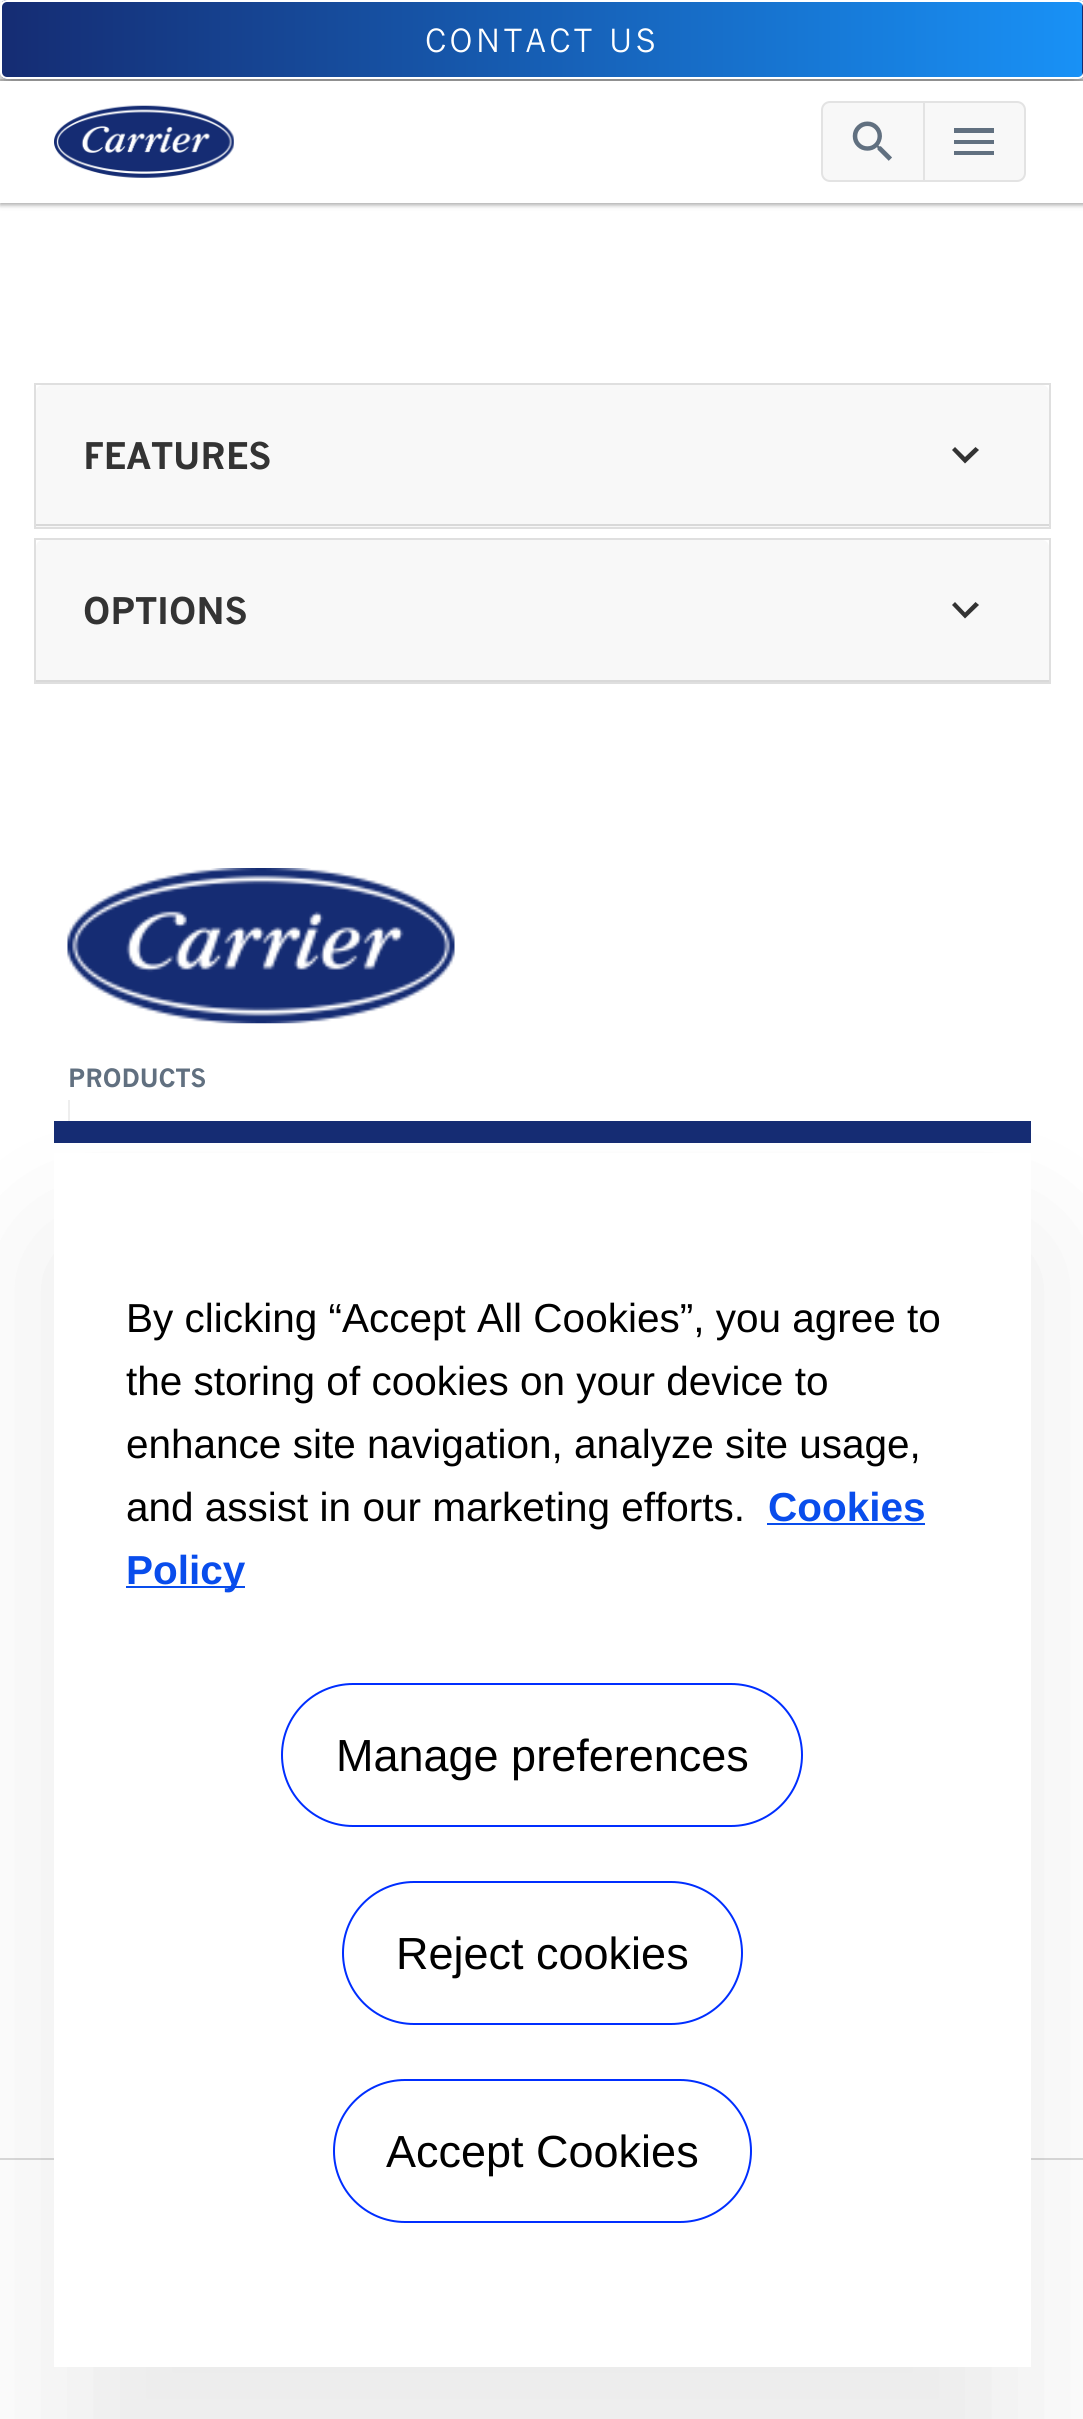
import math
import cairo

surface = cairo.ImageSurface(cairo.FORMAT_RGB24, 1083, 2419)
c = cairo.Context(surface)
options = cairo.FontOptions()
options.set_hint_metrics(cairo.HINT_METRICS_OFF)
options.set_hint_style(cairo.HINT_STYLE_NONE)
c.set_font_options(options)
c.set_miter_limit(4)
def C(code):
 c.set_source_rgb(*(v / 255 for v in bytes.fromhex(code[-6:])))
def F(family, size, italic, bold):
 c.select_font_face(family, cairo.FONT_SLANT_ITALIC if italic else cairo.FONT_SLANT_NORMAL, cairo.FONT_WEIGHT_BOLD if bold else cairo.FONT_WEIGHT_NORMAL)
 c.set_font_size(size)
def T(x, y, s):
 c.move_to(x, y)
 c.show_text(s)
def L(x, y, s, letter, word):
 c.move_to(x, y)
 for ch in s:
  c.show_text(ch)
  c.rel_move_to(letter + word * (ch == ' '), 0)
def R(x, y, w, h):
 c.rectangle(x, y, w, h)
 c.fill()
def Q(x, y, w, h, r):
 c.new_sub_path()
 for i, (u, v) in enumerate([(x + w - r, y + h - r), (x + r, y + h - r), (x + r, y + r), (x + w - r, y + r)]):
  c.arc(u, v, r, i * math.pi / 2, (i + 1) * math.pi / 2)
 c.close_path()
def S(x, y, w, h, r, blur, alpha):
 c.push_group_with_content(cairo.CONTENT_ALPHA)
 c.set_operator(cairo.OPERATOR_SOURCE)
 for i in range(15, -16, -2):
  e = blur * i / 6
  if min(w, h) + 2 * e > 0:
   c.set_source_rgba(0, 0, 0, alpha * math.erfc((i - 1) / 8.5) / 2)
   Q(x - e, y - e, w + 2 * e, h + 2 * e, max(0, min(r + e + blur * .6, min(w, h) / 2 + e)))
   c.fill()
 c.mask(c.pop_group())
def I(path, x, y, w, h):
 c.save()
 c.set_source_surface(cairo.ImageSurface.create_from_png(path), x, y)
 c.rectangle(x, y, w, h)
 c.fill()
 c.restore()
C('ffffff')
c.paint()
C('000000')
S(0,2,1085,203,0,3.5,.12)
S(0,2,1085,203,0,2,.24)
C('ffffff')
R(0,0,1083,79)
C('dadada')
R(0,79,1083,2)
C('000000')
S(0,23,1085,78,7,22.5,.19)
S(0,14,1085,78,7,7,.23)
c.save()
Q(0,0,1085,79,7)
c.clip()
gradient = cairo.LinearGradient(1082,39,2.2,39)
gradient.add_color_stop_rgba(0,0.094,0.569,0.965,1)
gradient.add_color_stop_rgba(1,0.082,0.173,0.451,1)
c.set_source(gradient)
R(2,0,1080,79)
gradient = cairo.LinearGradient(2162,39,1082,39)
gradient.add_color_stop_rgba(0,0.094,0.569,0.965,1)
gradient.add_color_stop_rgba(1,0.082,0.173,0.451,1)
c.set_source(gradient)
R(1082,0,1,79)
c.restore()
Q(1,1,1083,77,6)
C('ffffff')
c.stroke()
F('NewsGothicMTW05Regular',31.5,0,0)
L(425,52,'CONTACT US',3.6,0)
R(0,81,1083,122)
I('1.png',54,105,180,73)
C('f8f8f8')
c.new_path()
c.move_to(830,102)
c.line_to(924,102)
c.line_to(924,181)
c.line_to(830,181)
c.curve_to(825.5,181,822,177.5,822,173)
c.line_to(822,110)
c.curve_to(822,105.5,825.5,102,830,102)
c.close_path()
c.fill_preserve()
C('e3e3e3')
c.stroke()
I('2.png',852,121,40,40)
C('f8f8f8')
c.new_path()
c.move_to(924,102)
c.line_to(1017,102)
c.curve_to(1021.5,102,1025,105.5,1025,110)
c.line_to(1025,173)
c.curve_to(1025,177.5,1021.5,181,1017,181)
c.line_to(924,181)
c.close_path()
c.fill_preserve()
C('e3e3e3')
c.stroke()
C('617080')
c.new_path()
c.move_to(954,128)
c.line_to(994,128)
c.line_to(994,133)
c.line_to(954,133)
c.close_path()
c.move_to(954,144)
c.line_to(954,140)
c.line_to(994,140)
c.line_to(994,144)
c.close_path()
c.move_to(954,155)
c.line_to(954,151)
c.line_to(994,151)
c.line_to(994,155)
c.close_path()
c.fill()
c.rectangle(35,384,1015,144)
C('dfdfdf')
c.stroke()
C('f8f8f8')
c.new_path()
c.move_to(43,385)
c.line_to(1042,385)
c.curve_to(1046,385,1049,388,1049,392)
c.line_to(1049,527)
c.line_to(36,527)
c.line_to(36,392)
c.curve_to(36,388,39,385,43,385)
c.close_path()
c.fill()
C('d9d9d9')
R(36,524,1013,2)
F('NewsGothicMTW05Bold',36,0,1)
C('333333')
T(83,469,'FEATURES')
c.new_path()
c.move_to(975.5,447)
c.line_to(979,450)
c.line_to(965,463.5)
c.line_to(952,450)
c.line_to(955,447)
c.line_to(965,457)
c.close_path()
c.fill()
c.rectangle(35,539,1015,144)
C('dfdfdf')
c.stroke()
C('f8f8f8')
c.new_path()
c.move_to(43,540)
c.line_to(1042,540)
c.curve_to(1046,540,1049,543,1049,547)
c.line_to(1049,682)
c.line_to(36,682)
c.line_to(36,547)
c.curve_to(36,543,39,540,43,540)
c.close_path()
c.fill()
C('d9d9d9')
R(36,680,1013,2)
C('333333')
T(83,624,'OPTIONS')
c.new_path()
c.move_to(975.5,602)
c.line_to(979,605)
c.line_to(965,618.5)
c.line_to(952,605)
c.line_to(955,602)
c.line_to(965,612.5)
c.close_path()
c.fill()
I('3.png',67,868,388,156)
F('NewsGothicMTW05Bold',24.75,0,1)
C('617080')
T(68,1087,'PRODUCTS')
C('eeeeee')
R(68,1100,2,21)
C('dadada')
R(0,2158,1083,2)
C('000000')
S(54,1244,977,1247,0,79,.08)
C('ffffff')
R(54,1153,977,1214)
C('152c73')
R(54,1121,977,22)
F('Liberation Sans',40.5,0,0)
C('000000')
T(126,1332,'By clicking “Accept All Cookies”, you agree to')
T(126,1395,'the storing of cookies on your device to')
T(126,1458,'enhance site navigation, analyze site usage,')
T(126,1521,'and assist in our marketing efforts.')
F('Liberation Sans',40.5,0,1)
C('094dec')
T(768,1521,'Cookies')
R(767,1523,158,2)
R(126,1586,119,2)
T(126,1584,'Policy')
Q(282,1684,520,142,71)
C('002eff')
c.stroke()
F('Liberation Sans',45,0,0)
C('000000')
T(336,1771,'Manage preferences')
Q(343,1882,399,142,71)
C('002eff')
c.stroke()
C('000000')
T(396,1969,'Reject cookies')
Q(334,2080,417,142,71)
C('002eff')
c.stroke()
C('000000')
T(386,2167,'Accept Cookies')
surface.write_to_png('o.png')
